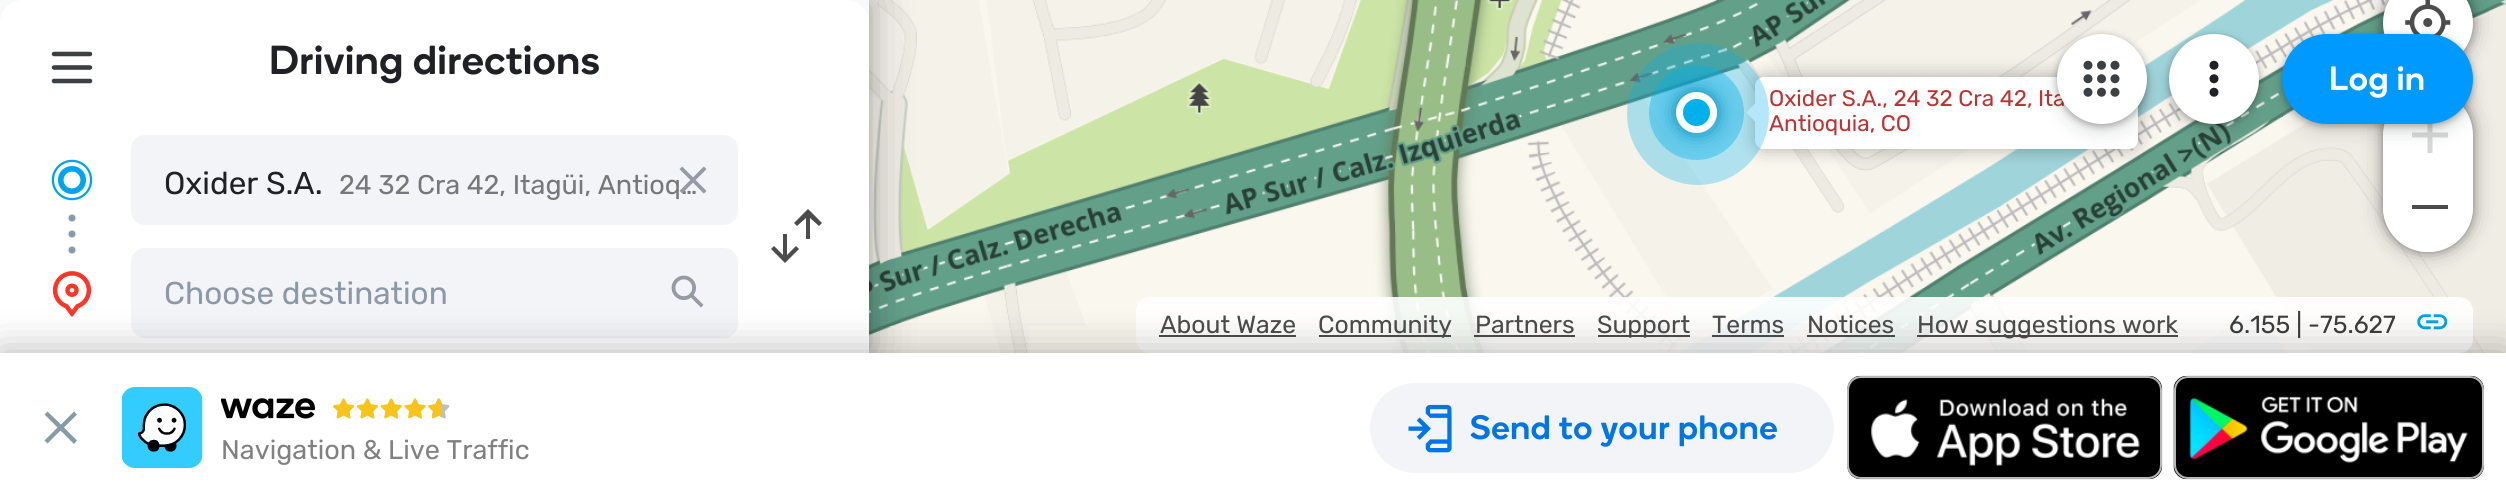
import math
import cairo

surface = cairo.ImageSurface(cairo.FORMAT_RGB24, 2506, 501)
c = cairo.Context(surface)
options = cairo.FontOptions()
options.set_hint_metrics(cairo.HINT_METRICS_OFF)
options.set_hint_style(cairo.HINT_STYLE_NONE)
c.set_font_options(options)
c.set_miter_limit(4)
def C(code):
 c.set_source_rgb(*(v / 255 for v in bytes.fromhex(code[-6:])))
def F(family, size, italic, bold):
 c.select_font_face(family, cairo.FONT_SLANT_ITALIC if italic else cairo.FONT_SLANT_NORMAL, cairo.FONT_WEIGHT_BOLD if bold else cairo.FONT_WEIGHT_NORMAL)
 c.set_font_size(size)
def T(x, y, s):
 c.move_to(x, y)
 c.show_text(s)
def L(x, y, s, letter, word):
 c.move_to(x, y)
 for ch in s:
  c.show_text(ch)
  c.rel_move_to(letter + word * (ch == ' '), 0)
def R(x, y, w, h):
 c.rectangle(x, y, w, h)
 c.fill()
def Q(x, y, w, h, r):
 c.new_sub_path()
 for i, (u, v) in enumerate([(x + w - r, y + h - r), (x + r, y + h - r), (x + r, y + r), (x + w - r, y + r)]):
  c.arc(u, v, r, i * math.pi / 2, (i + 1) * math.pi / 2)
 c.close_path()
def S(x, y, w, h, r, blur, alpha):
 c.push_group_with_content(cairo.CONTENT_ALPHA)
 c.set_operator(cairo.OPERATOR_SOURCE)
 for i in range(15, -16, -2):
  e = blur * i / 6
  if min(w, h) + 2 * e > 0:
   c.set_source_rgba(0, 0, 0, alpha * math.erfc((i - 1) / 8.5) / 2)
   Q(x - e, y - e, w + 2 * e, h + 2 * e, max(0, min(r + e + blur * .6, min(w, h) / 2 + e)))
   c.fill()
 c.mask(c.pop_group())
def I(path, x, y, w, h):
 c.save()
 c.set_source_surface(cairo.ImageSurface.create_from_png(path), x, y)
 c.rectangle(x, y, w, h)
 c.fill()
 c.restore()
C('f9f6ed')
c.paint()
I('6.png',869,0,265,326)
I('10.png',869,326,160,27)
C('000000')
S(0,5,869,353,0,9,.12)
S(0,0,869,353,0,22.5,.3)
C('f8f9fa')
R(0,0,869,23)
C('ffffff')
c.new_path()
c.move_to(23,0)
c.line_to(846,0)
c.curve_to(858.5,0,869,10.5,869,23)
c.line_to(869,135)
c.line_to(0,135)
c.line_to(0,23)
c.curve_to(0,10.5,10.5,0,23,0)
c.close_path()
c.fill()
I('1.png',51,51,42,33)
F('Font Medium',40.5,0,0)
C('202124')
L(269,74,'Driving directions',.7,0)
C('ffffff')
R(0,135,869,218)
C('869ca7')
c.new_path()
c.arc(72,218,3.5,0,2 * math.pi)
c.fill()
c.arc(72,234,3.5,0,2 * math.pi)
c.fill()
c.arc(72,250,3.5,0,2 * math.pi)
c.fill()
I('2.png',51,159,42,42)
C('f2f4f7')
Q(131,135,607,90,14)
c.fill()
F('Rubik',27,0,0)
C('777777')
T(339,194,'24 32 Cra 42, Itagüi, Antioq…')
I('3.png',679,166,28,28)
F('Rubik',31.5,0,0)
C('202124')
T(164,194,'Oxider S.A.')
C('4c4c4c')
c.new_path()
c.move_to(810,218)
c.line_to(810,239)
c.line_to(806,239)
c.line_to(806,218)
c.line_to(797,226)
c.line_to(794,223)
c.line_to(808,209)
c.line_to(822,223)
c.line_to(819,226)
c.close_path()
c.move_to(787,255)
c.line_to(796,246)
c.line_to(799,249)
c.line_to(785,263)
c.line_to(771,249)
c.line_to(774,246)
c.line_to(783,255)
c.line_to(783,234)
c.line_to(787,234)
c.close_path()
c.fill()
I('4.png',52,271,40,46)
C('f2f4f7')
Q(131,248,607,90,14)
c.fill()
C('8b98a5')
T(164,304,'Choose destination')
I('5.png',671,275,33,33)
I('7.png',1134,0,576,326)
I('8.png',1710,0,576,326)
I('9.png',2286,0,220,326)
I('11.png',1384,326,326,27)
I('12.png',1710,326,576,27)
I('13.png',2286,326,220,27)
C('000000')
S(1755,77,383,72,9,9,.3)
c.arc(1696.5,112.5,34,0,2 * math.pi)
c.set_source_rgba(0,0.69,0.922,0.4)
c.set_line_width(27)
c.stroke()
C('ffffff')
c.new_path()
c.move_to(1755,103.5)
c.line_to(1755,121.5)
c.line_to(1746,112.5)
c.close_path()
c.fill()
Q(1755,77,383,72,9)
c.fill()
c.arc(1698,114,45.5,0,2 * math.pi)
c.set_source_rgba(0,0.69,0.922,0.3)
c.set_line_width(51)
c.stroke()
C('008ab8')
S(1676,92,41,41,20.5,10,1)
C('00b0eb')
c.arc(1696.5,112.5,17,0,2 * math.pi)
c.fill_preserve()
C('ffffff')
c.set_line_width(7)
c.stroke()
F('Rubik',22.5,0,0)
C('c03131')
T(1769,106,'Oxider S.A., 24 32 Cra 42, Ita')
T(1769,131,'Antioquia, CO')
C('000000')
S(2383,-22,90,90,45,11,.3)
S(2383,-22,90,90,45,4.5,.3)
C('ffffff')
c.arc(2428,23,45,0,2 * math.pi)
c.fill()
I('14.png',2405,0,46,36)
C('000000')
S(2383,90,90,162,45,11,.3)
S(2383,90,90,162,45,4.5,.3)
C('ffffff')
Q(2383,90,90,162,45)
c.fill()
C('d8d8d8')
c.new_path()
c.move_to(2432.5,132.5)
c.line_to(2448,132.5)
c.line_to(2448,137.5)
c.line_to(2432.5,137.5)
c.line_to(2432.5,153)
c.line_to(2427.5,153)
c.line_to(2427.5,137.5)
c.line_to(2412,137.5)
c.line_to(2412,132.5)
c.line_to(2427.5,132.5)
c.line_to(2427.5,117)
c.line_to(2432.5,117)
c.close_path()
c.fill()
C('ffffff')
c.new_path()
c.move_to(2383,171)
c.line_to(2473,171)
c.line_to(2473,207)
c.curve_to(2473,232,2453,252,2428,252)
c.curve_to(2403,252,2383,232,2383,207)
c.close_path()
c.fill()
C('4c4c4c')
R(2412,205,36,4)
c.set_source_rgba(1,1,1,0.9)
Q(1136,297,1337,56,14)
c.fill()
F('Rubik',24.75,0,0)
C('4c4c4c')
T(1160,333,'About Waze')
R(1159,335,137,2)
R(1319,335,132,2)
T(1318,333,'Community')
T(1475,333,'Partners')
R(1474,335,101,2)
R(1598,335,92,2)
T(1597,333,'Support')
T(1712,333,'Terms')
R(1712,335,72,2)
T(1807,333,'Notices')
R(1807,335,88,2)
R(1917,335,261,2)
T(1917,333,'How suggestions work')
C('3d3d3d')
T(2229,333,'6.155 | -75.627')
I('15.png',2417,314,31,16)
C('3c4043')
S(2057,43,90,90,45,9,.15)
C('000000')
S(2057,36,90,90,45,3.5,.3)
C('ffffff')
c.arc(2102,79,42.5,0,2 * math.pi)
c.fill_preserve()
c.set_line_width(5)
c.stroke()
I('16.png',2083,60,37,37)
C('3c4043')
S(2169,43,90,90,45,9,.15)
C('000000')
S(2169,36,90,90,45,3.5,.3)
C('ffffff')
c.arc(2214,79,42.5,0,2 * math.pi)
c.fill_preserve()
c.stroke()
I('17.png',2209,60,10,37)
C('3c4043')
S(2282,43,191,90,45,9,.15)
C('000000')
S(2282,36,191,90,45,3.5,.3)
C('0099ff')
Q(2282,34,191,90,45)
c.fill()
F('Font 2 Medium',33.75,0,0)
C('ffffff')
L(2329,90,'Log in',.7,0)
C('000000')
S(0,353,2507,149,0,20,.3)
C('ffffff')
R(0,353,2506,148)
C('859ba6')
c.new_path()
c.move_to(57.5,427.5)
c.line_to(44.5,414.5)
c.line_to(47.5,411.5)
c.line_to(61,424.5)
c.line_to(74,411.5)
c.line_to(77,414.5)
c.line_to(64,427.5)
c.line_to(77,440.5)
c.line_to(74,444)
c.line_to(60.5,430.5)
c.line_to(47.5,443.5)
c.line_to(44.5,440.5)
c.close_path()
c.fill()
C('f2f4f7')
Q(1370,383,464,90,45)
c.fill()
I('18.png',1408,404,44,49)
C('0075e3')
L(1470,439,'Send to your phone',.7,0)
I('19.png',1847,375,316,105)
Q(1848,377,313,101,13)
C('b7b7b7')
c.set_line_width(2)
c.stroke()
I('20.png',2173,375,311,105)
Q(2175,377,308,101,13)
c.stroke()
I('21.png',122,387,81,81)
I('22.png',221,398,94,21)
I('23.png',333,398,117,21)
F('Rubik',27,0,0)
C('818181')
T(221,459,'Navigation & Live Traffic')
surface.write_to_png('o.png')
